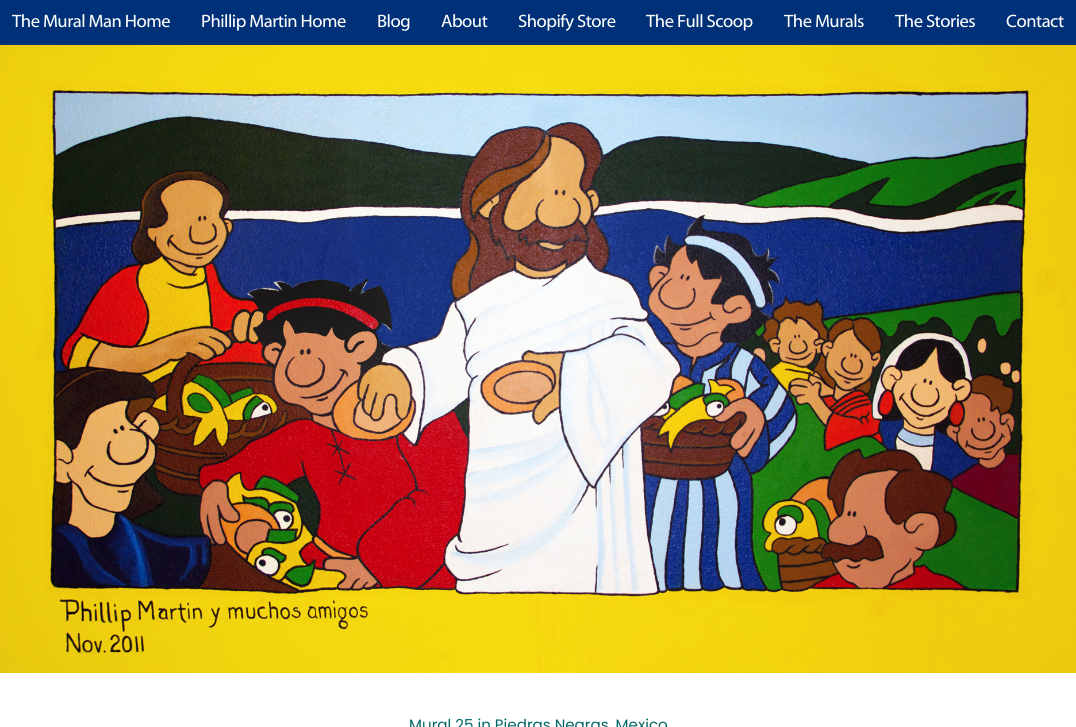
import math
import cairo

surface = cairo.ImageSurface(cairo.FORMAT_RGB24, 1076, 727)
c = cairo.Context(surface)
options = cairo.FontOptions()
options.set_hint_metrics(cairo.HINT_METRICS_OFF)
options.set_hint_style(cairo.HINT_STYLE_NONE)
c.set_font_options(options)
c.set_miter_limit(4)
def C(code):
 c.set_source_rgb(*(v / 255 for v in bytes.fromhex(code[-6:])))
def F(family, size, italic, bold):
 c.select_font_face(family, cairo.FONT_SLANT_ITALIC if italic else cairo.FONT_SLANT_NORMAL, cairo.FONT_WEIGHT_BOLD if bold else cairo.FONT_WEIGHT_NORMAL)
 c.set_font_size(size)
def T(x, y, s):
 c.move_to(x, y)
 c.show_text(s)
def L(x, y, s, letter, word):
 c.move_to(x, y)
 for ch in s:
  c.show_text(ch)
  c.rel_move_to(letter + word * (ch == ' '), 0)
def R(x, y, w, h):
 c.rectangle(x, y, w, h)
 c.fill()
def I(path, x, y, w, h):
 c.save()
 c.set_source_surface(cairo.ImageSurface.create_from_png(path), x, y)
 c.rectangle(x, y, w, h)
 c.fill()
 c.restore()
C('ffffff')
c.paint()
C('003178')
R(0,0,1076,45)
F('Myriad',18,0,0)
C('ffffff')
L(12,27,'The Mural Man Home',-.5,0)
L(201,27,'Phillip Martin Home',-.5,0)
L(377,27,'Blog',-.5,0)
L(441,27,'About',-.5,0)
L(518,27,'Shopify Store',-.5,0)
L(646,27,'The Full Scoop',-.5,0)
L(784,27,'The Murals',-.5,0)
L(895,27,'The Stories',-.5,0)
L(1006,27,'Contact',-.5,0)
I('1.png',0,45,1076,628)
F('Poppins',15.1,0,0)
C('006666')
T(409,730,'Mural 25 in Piedras Negras, Mexico')
surface.write_to_png('o.png')
